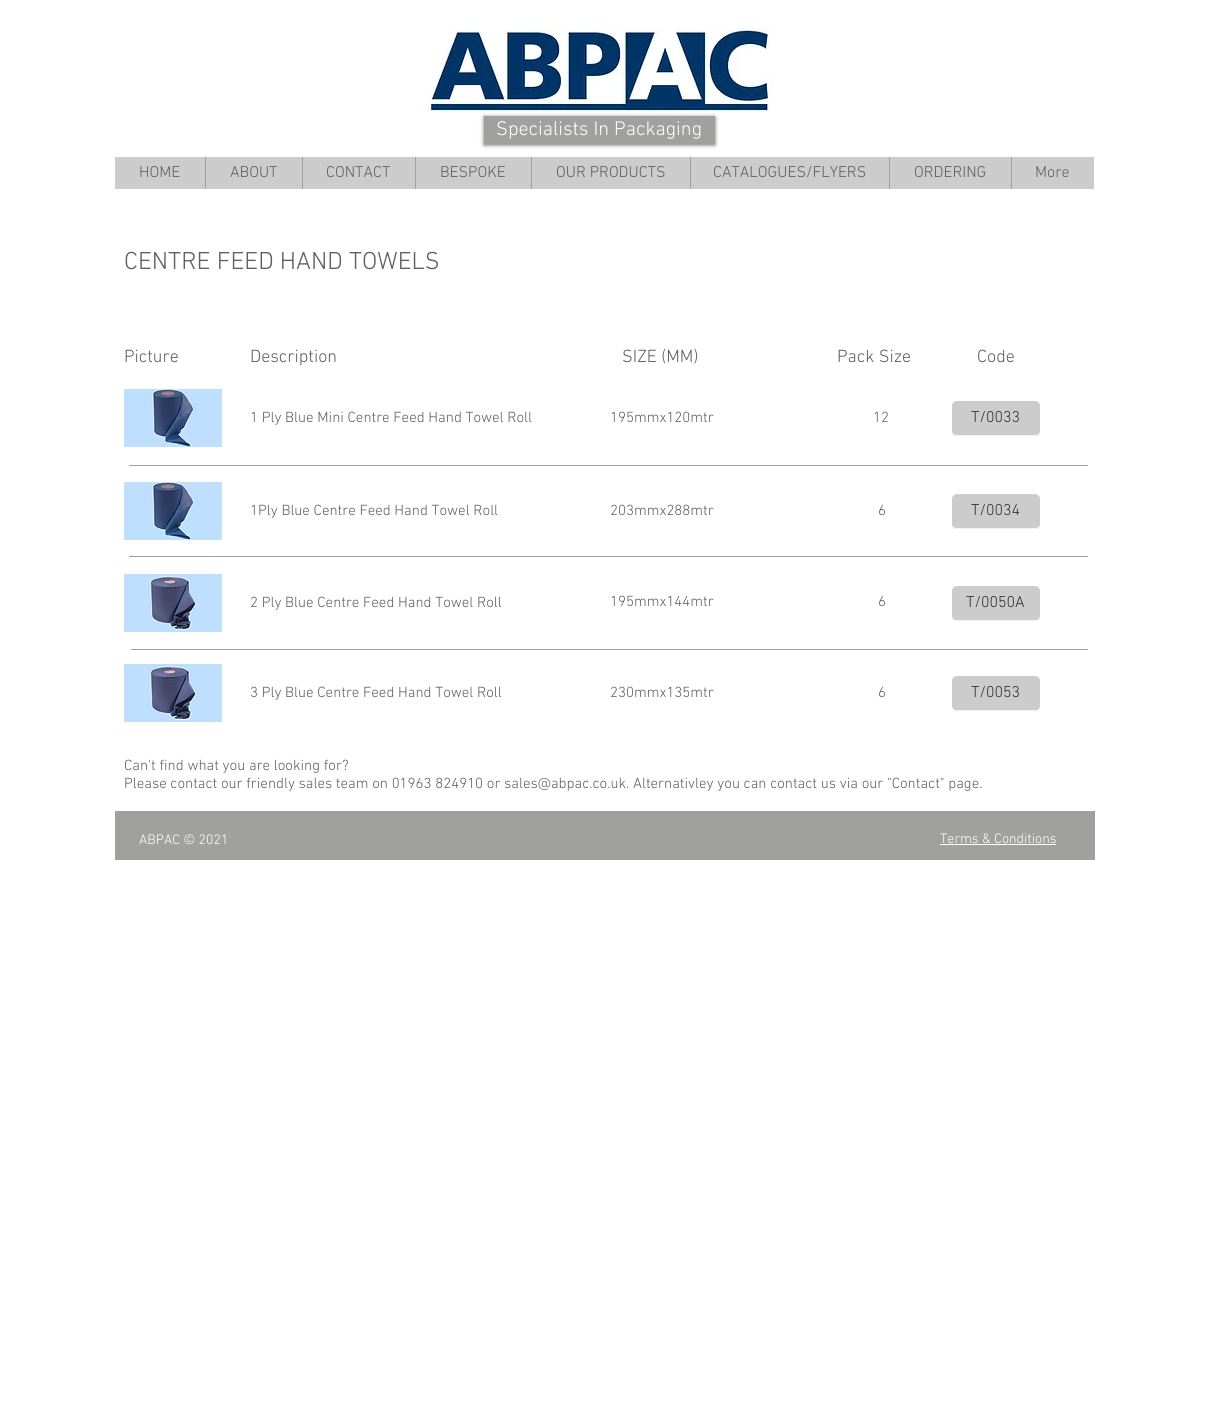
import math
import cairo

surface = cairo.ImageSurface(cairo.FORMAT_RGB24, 1209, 1402)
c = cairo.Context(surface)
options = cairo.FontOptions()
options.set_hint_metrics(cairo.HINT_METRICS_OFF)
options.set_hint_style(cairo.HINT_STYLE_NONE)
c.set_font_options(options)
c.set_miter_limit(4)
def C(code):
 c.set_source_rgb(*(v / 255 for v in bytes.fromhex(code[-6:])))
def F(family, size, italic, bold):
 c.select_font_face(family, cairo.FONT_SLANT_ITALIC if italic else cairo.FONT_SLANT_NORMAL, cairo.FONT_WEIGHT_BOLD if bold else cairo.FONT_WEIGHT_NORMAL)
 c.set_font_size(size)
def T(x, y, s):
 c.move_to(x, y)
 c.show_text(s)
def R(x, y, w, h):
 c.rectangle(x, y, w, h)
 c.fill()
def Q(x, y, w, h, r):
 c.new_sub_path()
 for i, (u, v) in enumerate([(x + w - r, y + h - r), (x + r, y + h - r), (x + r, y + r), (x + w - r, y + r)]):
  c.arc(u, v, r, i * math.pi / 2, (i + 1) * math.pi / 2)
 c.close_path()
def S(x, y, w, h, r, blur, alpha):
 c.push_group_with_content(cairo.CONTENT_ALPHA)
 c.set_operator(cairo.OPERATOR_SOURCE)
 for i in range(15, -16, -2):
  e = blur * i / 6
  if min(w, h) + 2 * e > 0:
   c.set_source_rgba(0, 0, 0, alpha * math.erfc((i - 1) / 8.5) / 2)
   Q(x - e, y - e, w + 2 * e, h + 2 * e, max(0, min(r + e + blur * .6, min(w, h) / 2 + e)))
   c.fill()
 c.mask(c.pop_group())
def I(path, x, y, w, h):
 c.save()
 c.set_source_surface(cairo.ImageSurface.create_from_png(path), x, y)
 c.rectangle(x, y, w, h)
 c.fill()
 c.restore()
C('ffffff')
c.paint()
I('1.png',429,29,345,82)
C('000000')
S(484,117,231,28,0,2,.6)
C('a0a09f')
R(484,116,231,28)
F('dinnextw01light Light',20,0,0)
C('ffffff')
T(496,135,'Specialists In Packaging')
C('cccccc')
R(115,157,979,32)
F('dinnextw01light Light',16,0,0)
C('605e5e')
T(139,177,'HOME')
C('a0a09f')
R(205,157,1,32)
C('605e5e')
T(230,177,'ABOUT')
C('a0a09f')
R(302,157,1,32)
C('605e5e')
T(326,177,'CONTACT')
C('a0a09f')
R(415,157,1,32)
C('605e5e')
T(440,177,'BESPOKE')
C('a0a09f')
R(531,157,1,32)
C('605e5e')
T(556,177,'OUR PRODUCTS')
C('a0a09f')
R(690,157,1,32)
C('605e5e')
T(713,177,'CATALOGUES/FLYERS')
C('a0a09f')
R(889,157,1,32)
C('605e5e')
T(914,177,'ORDERING')
C('a0a09f')
R(1011,157,1,32)
C('605e5e')
T(1035,177,'More')
F('dinnextw01light Light',25,0,0)
T(124,269,'CENTRE FEED HAND TOWELS')
F('dinnextw01light Light',18,0,0)
T(124,362,'Picture')
T(250,362,'Description')
T(622,362,'SIZE (MM)')
T(837,362,'Pack Size')
T(977,362,'Code')
I('2.png',124,389,98,58)
F('dinnextw01light Light',15,0,0)
T(250,422,'1 Ply Blue Mini Centre Feed Hand Towel Roll')
T(610,422,'195mmx120mtr')
T(873,422,'12')
C('cccccc')
Q(952,401,88,35,5)
c.fill()
c.set_source_rgba(1,1,1,0.75)
c.new_path()
c.move_to(952,430)
c.curve_to(952,439,964,436,970,436)
c.line_to(1022,436)
c.curve_to(1028,436,1040,439,1040,430)
c.curve_to(1040,433,1038,435,1035,435)
c.line_to(957,435)
c.curve_to(954,435,952,433,952,430)
c.close_path()
c.fill()
F('dinnextw01light Light',16,0,0)
C('2f2e2e')
T(971,422,'T/0033')
C('a0a09f')
R(129,465,959,1)
I('2.png',124,482,98,58)
F('dinnextw01light Light',15,0,0)
C('605e5e')
T(250,515,'1Ply Blue Centre Feed Hand Towel Roll')
T(610,515,'203mmx288mtr')
T(878,515,'6')
C('cccccc')
Q(952,494,88,35,5)
c.fill()
c.set_source_rgba(1,1,1,0.75)
c.new_path()
c.move_to(952,523)
c.curve_to(952,532,964,529,970,529)
c.line_to(1022,529)
c.curve_to(1028,529,1040,532,1040,523)
c.curve_to(1040,526,1038,528,1035,528)
c.line_to(957,528)
c.curve_to(954,528,952,526,952,523)
c.close_path()
c.fill()
F('dinnextw01light Light',16,0,0)
C('2f2e2e')
T(971,515,'T/0034')
C('a0a09f')
R(129,556,959,1)
I('3.png',124,574,98,58)
F('dinnextw01light Light',15,0,0)
C('605e5e')
T(250,607,'2 Ply Blue Centre Feed Hand Towel Roll')
T(610,606,'195mmx144mtr')
T(878,606,'6')
C('cccccc')
Q(952,586,88,35,5)
c.fill()
c.set_source_rgba(1,1,1,0.75)
c.new_path()
c.move_to(952,615)
c.curve_to(952,624,964,621,970,621)
c.line_to(1022,621)
c.curve_to(1028,621,1040,624,1040,615)
c.curve_to(1040,618,1038,620,1035,620)
c.line_to(957,620)
c.curve_to(954,620,952,618,952,615)
c.close_path()
c.fill()
F('dinnextw01light Light',16,0,0)
C('2f2e2e')
T(966,607,'T/0050A')
C('a0a09f')
R(131,649,957,1)
I('3.png',124,664,98,58)
F('dinnextw01light Light',15,0,0)
C('605e5e')
T(250,697,'3 Ply Blue Centre Feed Hand Towel Roll')
T(610,697,'230mmx135mtr')
T(878,697,'6')
C('cccccc')
Q(952,676,88,35,5)
c.fill()
c.set_source_rgba(1,1,1,0.75)
c.new_path()
c.move_to(952,705)
c.curve_to(952,714,964,711,970,711)
c.line_to(1022,711)
c.curve_to(1028,711,1040,714,1040,705)
c.curve_to(1040,708,1038,710,1035,710)
c.line_to(957,710)
c.curve_to(954,710,952,708,952,705)
c.close_path()
c.fill()
F('dinnextw01light Light',16,0,0)
C('2f2e2e')
T(971,697,'T/0053')
F('dinnextw01light Light',15,0,0)
C('605e5e')
T(124,770,'Can\'t find what you are looking for?')
T(124,788,'Please contact our friendly sales team on 01963 824910 or sales@abpac.co.uk. Alternativley you can contact us via our "Contact" page.')
C('a0a09f')
R(115,811,980,49)
F('dinnextw01light Light',14,0,0)
C('ffffff')
T(139,844,'ABPAC © 2021')
T(940,843,'Terms & Conditions')
R(940,844,116,1)
surface.write_to_png('o.png')
